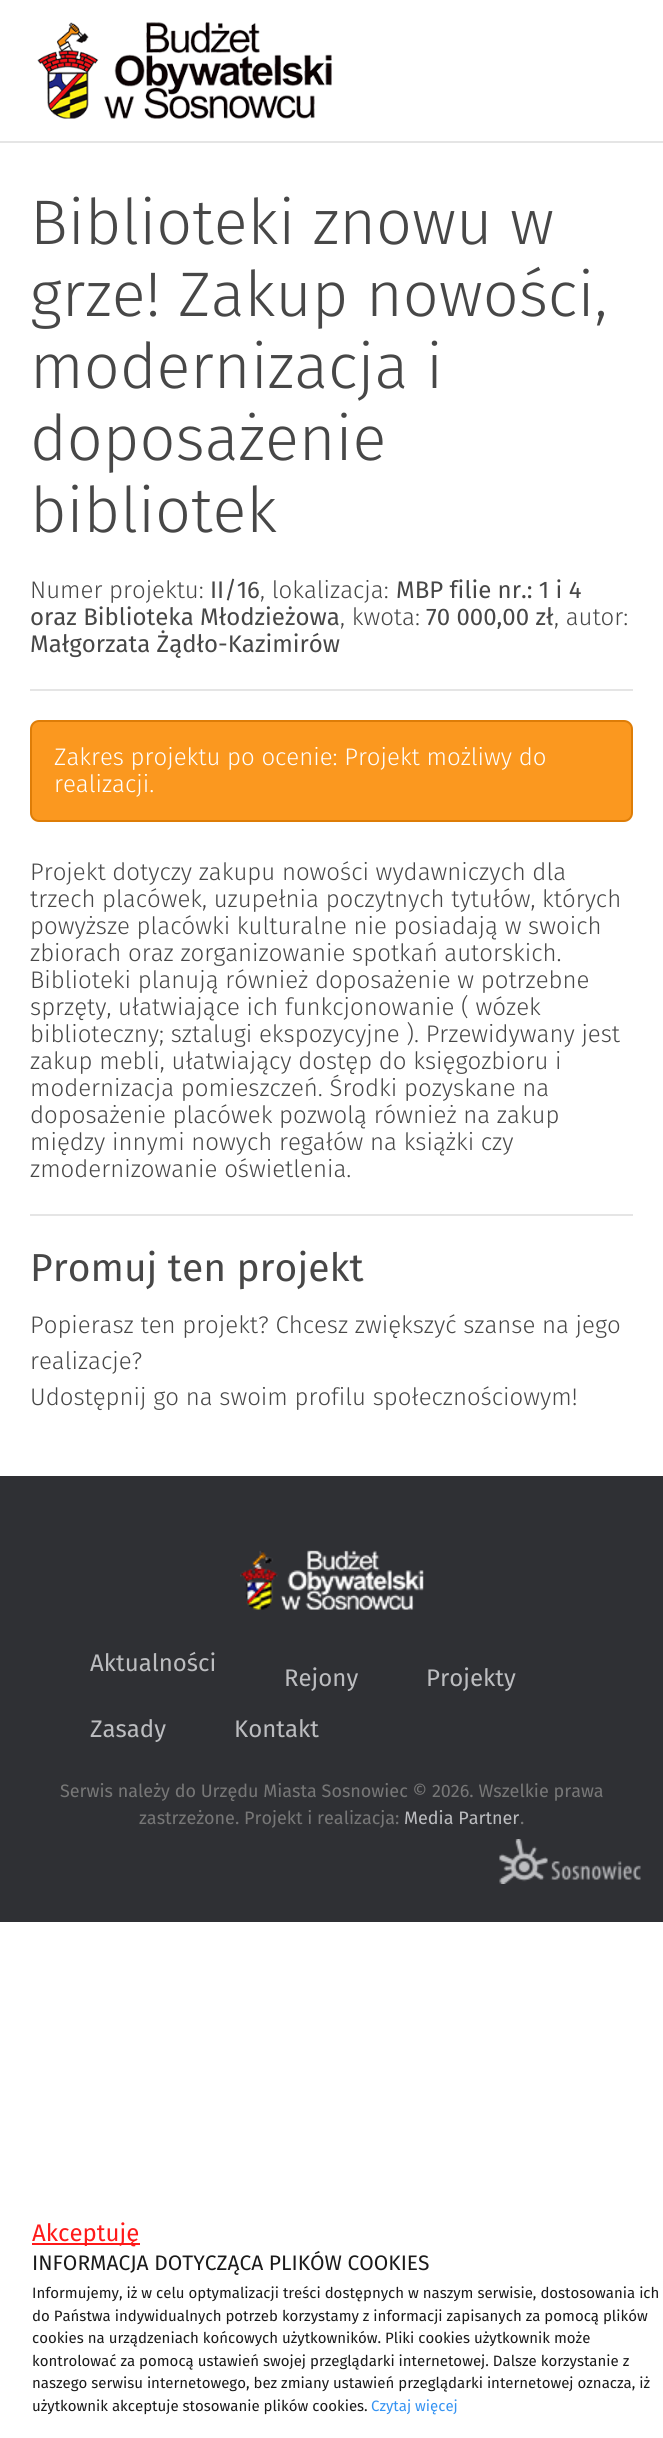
import math
import cairo

surface = cairo.ImageSurface(cairo.FORMAT_RGB24, 663, 2438)
c = cairo.Context(surface)
options = cairo.FontOptions()
options.set_hint_metrics(cairo.HINT_METRICS_OFF)
options.set_hint_style(cairo.HINT_STYLE_NONE)
c.set_font_options(options)
c.set_miter_limit(4)
def C(code):
 c.set_source_rgb(*(v / 255 for v in bytes.fromhex(code[-6:])))
def F(family, size, italic, bold):
 c.select_font_face(family, cairo.FONT_SLANT_ITALIC if italic else cairo.FONT_SLANT_NORMAL, cairo.FONT_WEIGHT_BOLD if bold else cairo.FONT_WEIGHT_NORMAL)
 c.set_font_size(size)
def T(x, y, s):
 c.move_to(x, y)
 c.show_text(s)
def R(x, y, w, h):
 c.rectangle(x, y, w, h)
 c.fill()
def Q(x, y, w, h, r):
 c.new_sub_path()
 for i, (u, v) in enumerate([(x + w - r, y + h - r), (x + r, y + h - r), (x + r, y + r), (x + w - r, y + r)]):
  c.arc(u, v, r, i * math.pi / 2, (i + 1) * math.pi / 2)
 c.close_path()
def I(path, x, y, w, h):
 c.save()
 c.set_source_surface(cairo.ImageSurface.create_from_png(path), x, y)
 c.rectangle(x, y, w, h)
 c.fill()
 c.restore()
C('ffffff')
c.paint()
I('1.png',37,22,295,97)
C('e5e5e5')
R(0,141,663,2)
F('Fira Sans Light',63,0,0)
C('474747')
T(30,244,'Biblioteki znowu w')
T(30,316,'grze! Zakup nowości,')
T(30,388,'modernizacja i')
T(30,460,'doposażenie')
T(30,532,'bibliotek')
F('Fira Sans Light',24,0,0)
T(30,598,'Numer projektu:')
F('Fira Sans',24,0,0)
T(210,598,'II/16')
F('Fira Sans Light',24,0,0)
T(260,598,', lokalizacja:')
F('Fira Sans',24,0,0)
T(396,598,'MBP filie nr.: 1 i 4')
T(30,625,'oraz Biblioteka Młodzieżowa')
F('Fira Sans Light',24,0,0)
T(340,625,', kwota:')
F('Fira Sans',24,0,0)
T(426,625,'70 000,00 zł')
F('Fira Sans Light',24,0,0)
T(554,625,', autor:')
F('Fira Sans',24,0,0)
T(30,652,'Małgorzata Żądło-Kazimirów')
C('e5e5e5')
R(30,689,603,2)
C('fb981f')
Q(31,721,601,100,8)
c.fill_preserve()
C('de7d07')
c.stroke()
F('Fira Sans Light',24,0,0)
C('ffffff')
T(54,765,'Zakres projektu po ocenie: Projekt możliwy do')
T(54,792,'realizacji.')
C('474747')
T(30,880,'Projekt dotyczy zakupu nowości wydawniczych dla')
T(30,907,'trzech placówek, uzupełnia poczytnych tytułów, których')
T(30,934,'powyższe placówki kulturalne nie posiadają w swoich')
T(30,961,'zbiorach oraz zorganizowanie spotkań autorskich.')
T(30,988,'Biblioteki planują również doposażenie w potrzebne')
T(30,1015,'sprzęty, ułatwiające ich funkcjonowanie ( wózek')
T(30,1042,'biblioteczny; sztalugi ekspozycyjne ). Przewidywany jest')
T(30,1069,'zakup mebli, ułatwiający dostęp do księgozbioru i')
T(30,1096,'modernizacja pomieszczeń. Środki pozyskane na')
T(30,1123,'doposażenie placówek pozwolą również na zakup')
T(30,1150,'między innymi nowych regałów na książki czy')
T(30,1177,'zmodernizowanie oświetlenia.')
C('e5e5e5')
R(30,1214,603,2)
F('Fira Sans',39,0,0)
C('474747')
T(30,1281,'Promuj ten projekt')
F('Fira Sans Light',24,0,0)
T(30,1333,'Popierasz ten projekt? Chcesz zwiększyć szanse na jego')
T(30,1369,'realizacje?')
T(30,1405,'Udostępnij go na swoim profilu społecznościowym!')
C('2f3034')
R(0,1476,663,446)
I('2.png',240,1550,184,60)
F('Fira Sans',24,0,0)
C('bcbdc0')
T(90,1671,'Aktualności')
T(284,1686,'Rejony')
T(426,1686,'Projekty')
T(90,1737,'Zasady')
T(234,1737,'Kontakt')
F('Fira Sans',18,0,0)
C('777777')
T(60,1797,'Serwis należy do Urzędu Miasta Sosnowiec © 2026. Wszelkie prawa')
T(139,1824,'zastrzeżone. Projekt i realizacja:')
C('bcbdc0')
T(404,1824,'Media Partner')
C('777777')
T(520,1824,'.')
I('3.png',499,1839,142,45)
C('ff1a1a')
R(32,2243,108,2)
F('Fira Sans',24,0,0)
T(32,2241,'Akceptuję')
F('Fira Sans',21,0,0)
C('1a1a1a')
T(32,2270,'INFORMACJA DOTYCZĄCA PLIKÓW COOKIES')
F('Fira Sans',15,0,0)
T(32,2298,'Informujemy, iż w celu optymalizacji treści dostępnych w naszym serwisie, dostosowania ich')
T(32,2321,'do Państwa indywidualnych potrzeb korzystamy z informacji zapisanych za pomocą plików')
T(32,2343,'cookies na urządzeniach końcowych użytkowników. Pliki cookies użytkownik może')
T(32,2366,'kontrolować za pomocą ustawień swojej przeglądarki internetowej. Dalsze korzystanie z')
T(32,2388,'naszego serwisu internetowego, bez zmiany ustawień przeglądarki internetowej oznacza, iż')
T(32,2411,'użytkownik akceptuje stosowanie plików cookies.')
C('3593f2')
T(371,2411,'Czytaj więcej')
surface.write_to_png('o.png')
